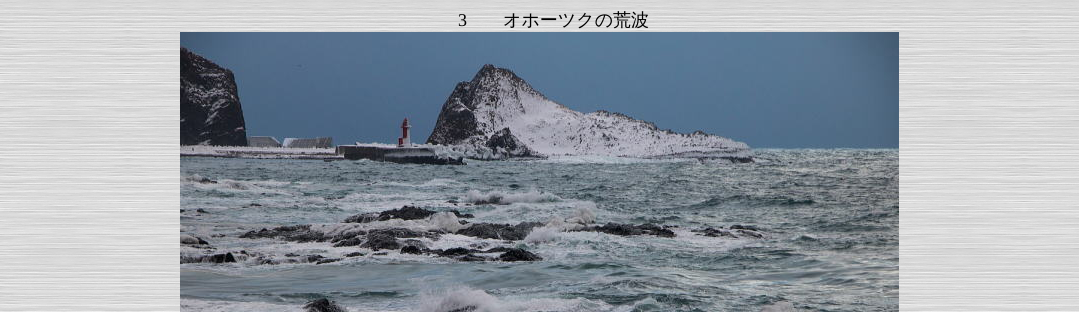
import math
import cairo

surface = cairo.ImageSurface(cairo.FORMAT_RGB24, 1079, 312)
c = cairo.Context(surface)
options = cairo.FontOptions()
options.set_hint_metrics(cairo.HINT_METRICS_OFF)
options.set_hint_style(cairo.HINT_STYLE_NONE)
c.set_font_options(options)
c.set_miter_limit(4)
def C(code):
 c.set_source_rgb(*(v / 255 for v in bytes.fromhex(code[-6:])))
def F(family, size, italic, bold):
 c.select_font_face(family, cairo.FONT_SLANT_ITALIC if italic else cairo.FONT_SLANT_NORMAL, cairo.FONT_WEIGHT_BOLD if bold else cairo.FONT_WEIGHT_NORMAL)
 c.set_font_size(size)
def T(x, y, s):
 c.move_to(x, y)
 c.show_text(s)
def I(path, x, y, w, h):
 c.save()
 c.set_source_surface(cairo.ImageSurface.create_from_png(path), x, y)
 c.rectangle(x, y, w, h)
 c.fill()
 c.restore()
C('ffffff')
c.paint()
I('1.png',0,0,1079,312)
F('Liberation Serif',18,0,0)
C('000000')
T(458,26,'3')
F('WenQuanYi Zen Hei Medium',18,0,0)
T(503,26,'オホーツクの荒波')
I('2.png',180,32,719,280)
surface.write_to_png('o.png')
